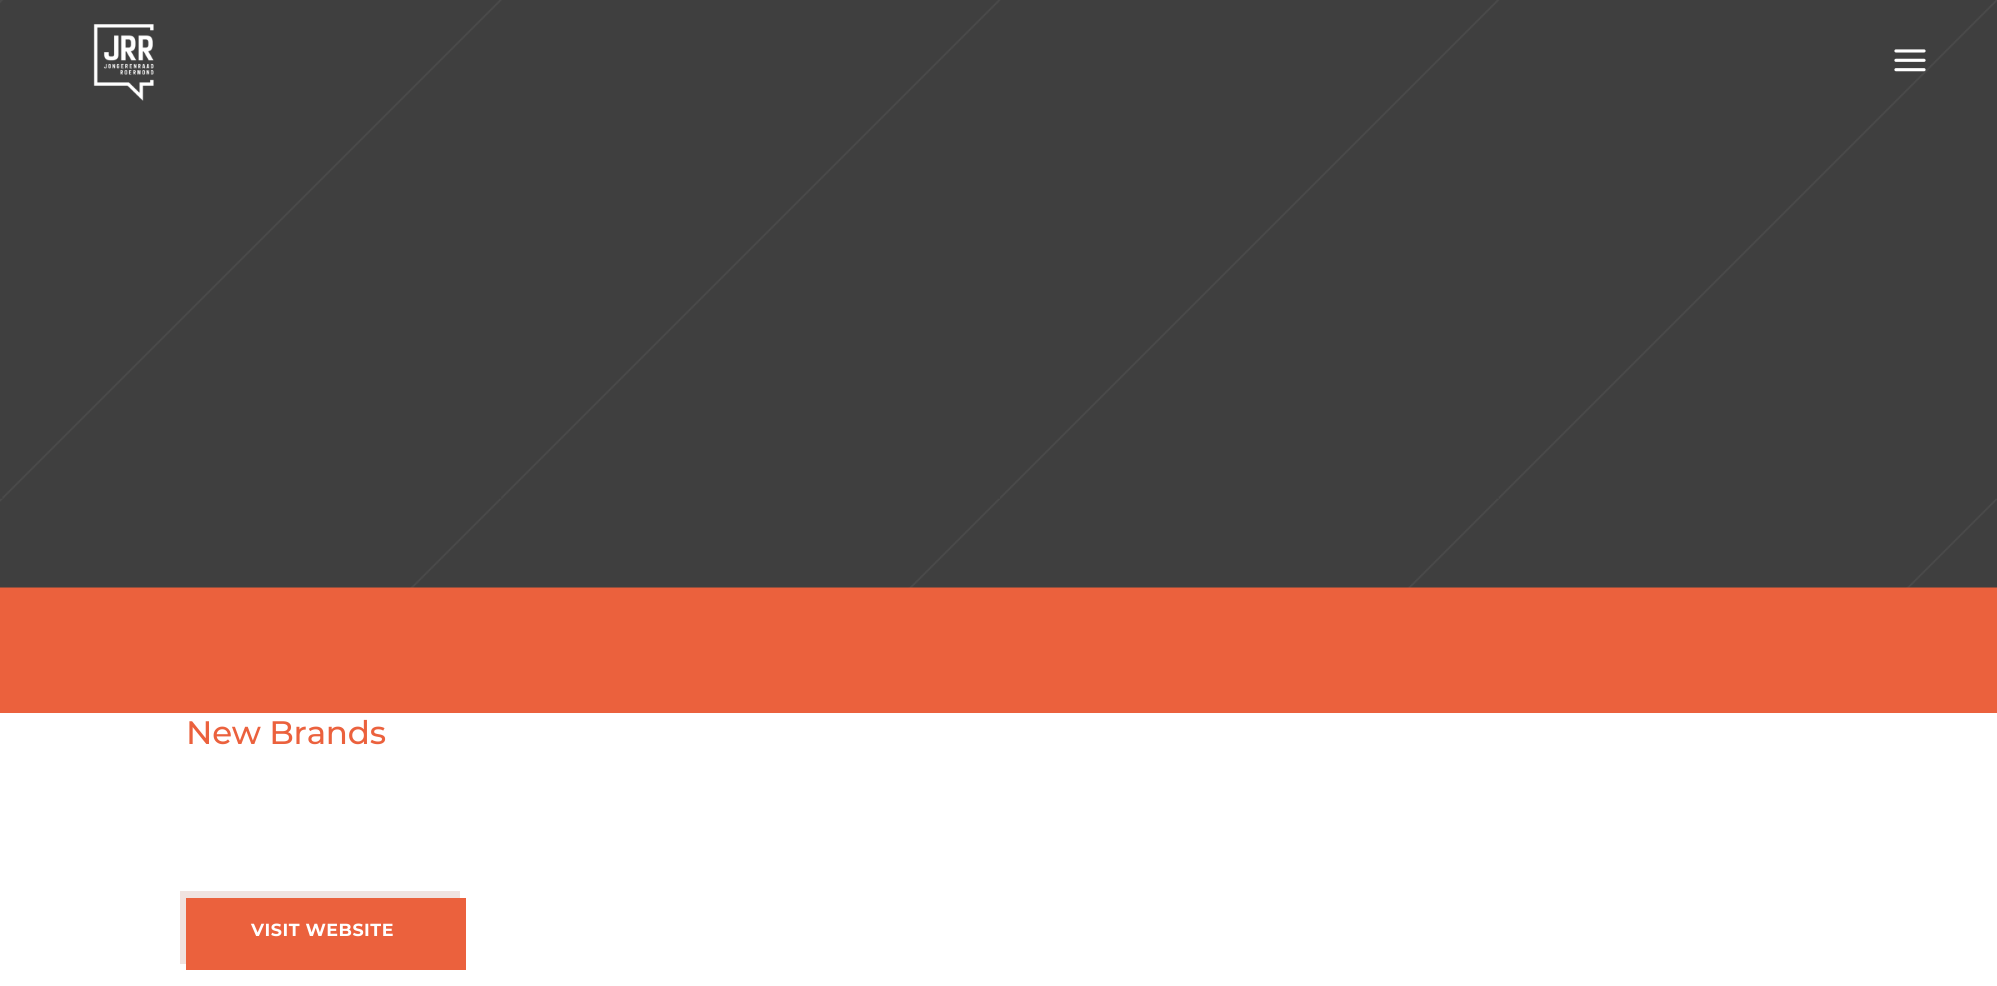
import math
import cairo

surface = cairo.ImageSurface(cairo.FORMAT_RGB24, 1997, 986)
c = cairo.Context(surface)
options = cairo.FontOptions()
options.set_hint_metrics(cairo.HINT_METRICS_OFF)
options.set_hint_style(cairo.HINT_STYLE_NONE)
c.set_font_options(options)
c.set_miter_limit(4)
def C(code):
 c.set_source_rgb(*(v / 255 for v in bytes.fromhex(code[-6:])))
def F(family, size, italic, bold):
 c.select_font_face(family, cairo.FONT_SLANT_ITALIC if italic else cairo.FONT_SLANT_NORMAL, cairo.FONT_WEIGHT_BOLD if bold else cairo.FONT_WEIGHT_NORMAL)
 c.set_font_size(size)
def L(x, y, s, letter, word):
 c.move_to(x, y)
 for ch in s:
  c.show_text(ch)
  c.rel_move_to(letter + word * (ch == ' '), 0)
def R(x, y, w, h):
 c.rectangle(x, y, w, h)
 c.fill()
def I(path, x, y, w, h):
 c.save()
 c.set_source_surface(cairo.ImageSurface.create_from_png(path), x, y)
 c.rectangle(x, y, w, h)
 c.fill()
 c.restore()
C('eb613d')
c.paint()
I('3.png',0,0,1997,588)
I('1.png',93,24,61,77)
I('2.png',1894,49,32,23)
C('ffffff')
R(0,713,1997,273)
F('Montserrat Medium',32.5,0,0)
C('eb613d')
L(186,744,'New Brands',-.25,0)
R(186,898,280,72)
C('f0e3e0')
R(180,891,280,73)
C('eb613d')
R(186,898,274,66)
F('Montserrat',17.5,0,1)
C('ffffff')
L(251,936,'VISIT WEBSITE',.5,0)
surface.write_to_png('o.png')
